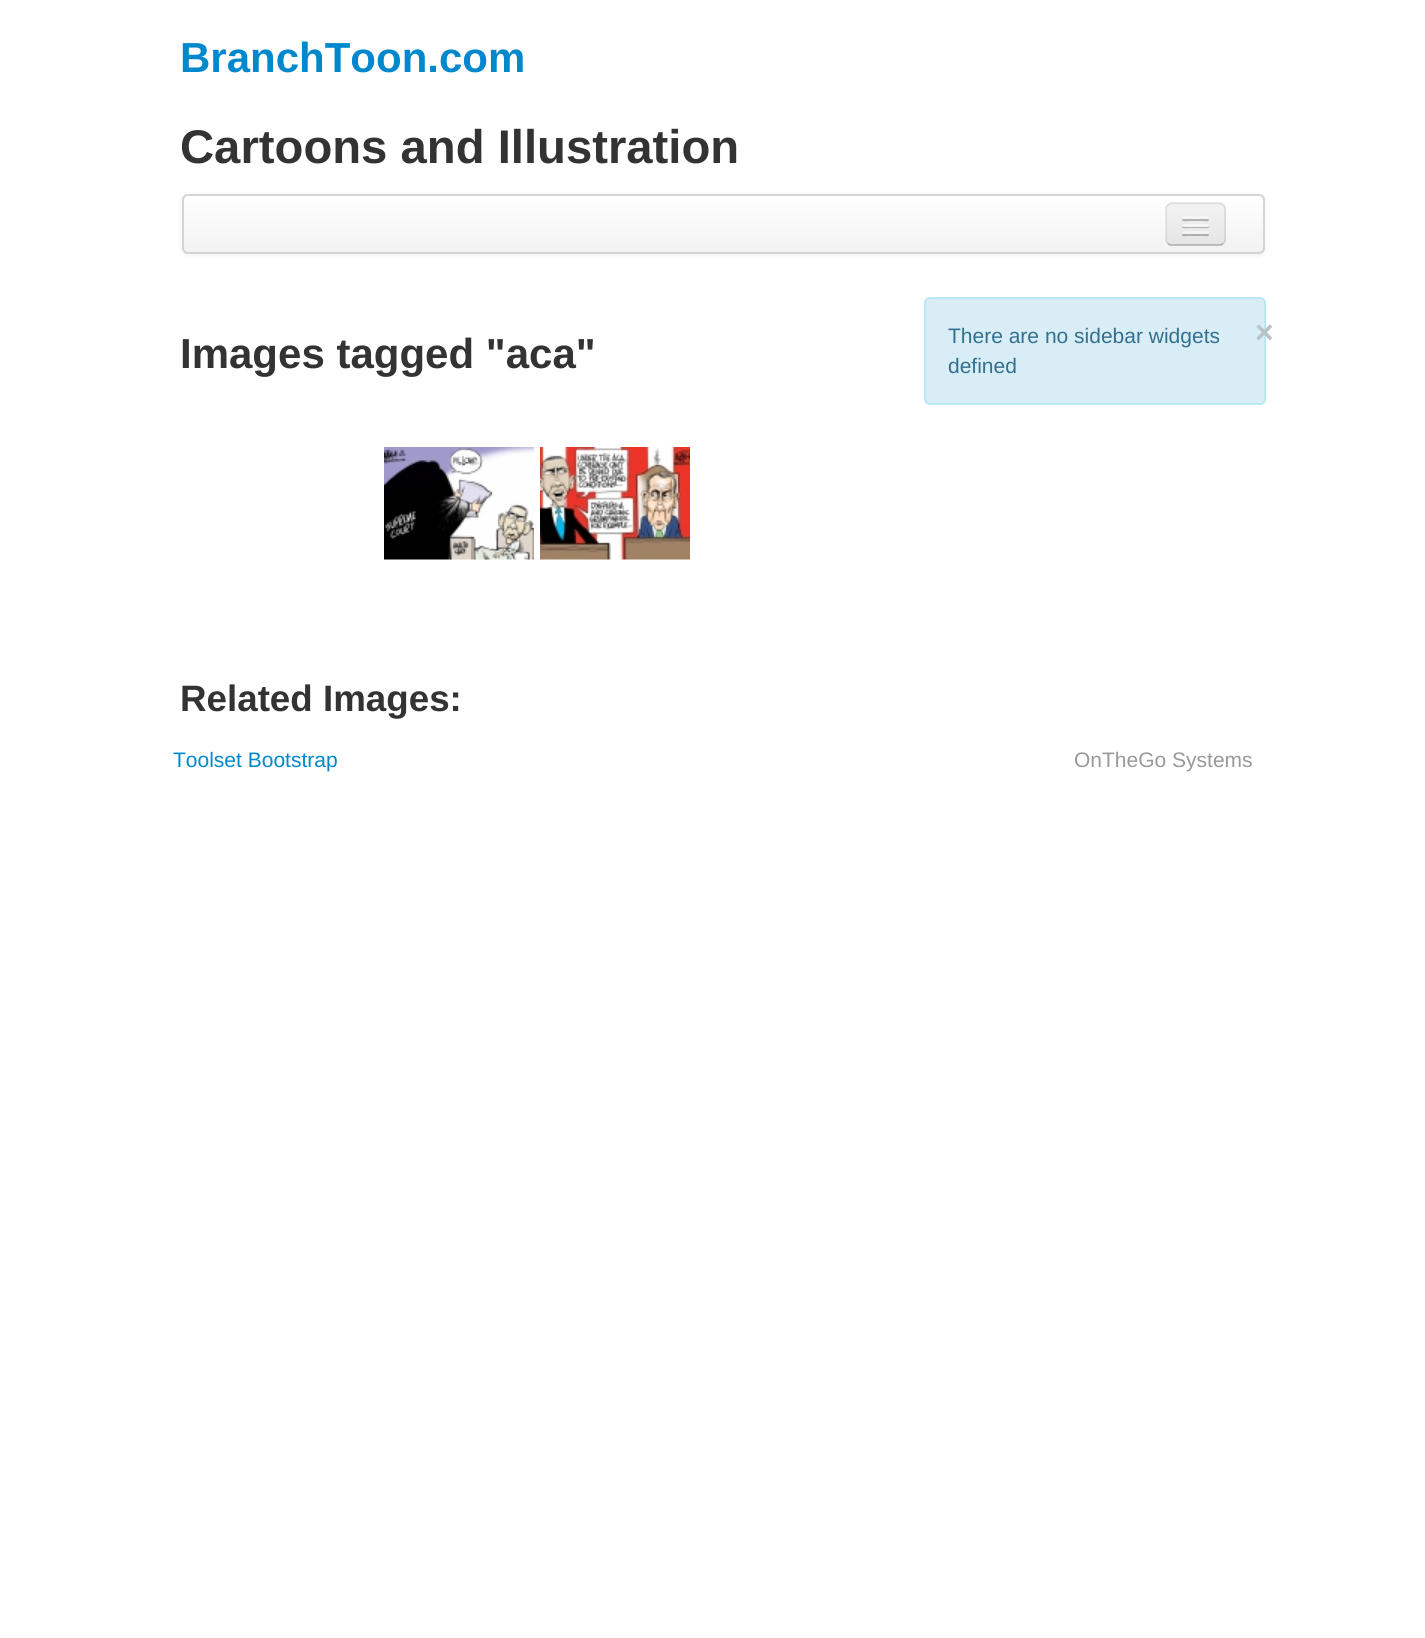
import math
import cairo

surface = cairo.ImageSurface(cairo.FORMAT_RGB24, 1425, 1638)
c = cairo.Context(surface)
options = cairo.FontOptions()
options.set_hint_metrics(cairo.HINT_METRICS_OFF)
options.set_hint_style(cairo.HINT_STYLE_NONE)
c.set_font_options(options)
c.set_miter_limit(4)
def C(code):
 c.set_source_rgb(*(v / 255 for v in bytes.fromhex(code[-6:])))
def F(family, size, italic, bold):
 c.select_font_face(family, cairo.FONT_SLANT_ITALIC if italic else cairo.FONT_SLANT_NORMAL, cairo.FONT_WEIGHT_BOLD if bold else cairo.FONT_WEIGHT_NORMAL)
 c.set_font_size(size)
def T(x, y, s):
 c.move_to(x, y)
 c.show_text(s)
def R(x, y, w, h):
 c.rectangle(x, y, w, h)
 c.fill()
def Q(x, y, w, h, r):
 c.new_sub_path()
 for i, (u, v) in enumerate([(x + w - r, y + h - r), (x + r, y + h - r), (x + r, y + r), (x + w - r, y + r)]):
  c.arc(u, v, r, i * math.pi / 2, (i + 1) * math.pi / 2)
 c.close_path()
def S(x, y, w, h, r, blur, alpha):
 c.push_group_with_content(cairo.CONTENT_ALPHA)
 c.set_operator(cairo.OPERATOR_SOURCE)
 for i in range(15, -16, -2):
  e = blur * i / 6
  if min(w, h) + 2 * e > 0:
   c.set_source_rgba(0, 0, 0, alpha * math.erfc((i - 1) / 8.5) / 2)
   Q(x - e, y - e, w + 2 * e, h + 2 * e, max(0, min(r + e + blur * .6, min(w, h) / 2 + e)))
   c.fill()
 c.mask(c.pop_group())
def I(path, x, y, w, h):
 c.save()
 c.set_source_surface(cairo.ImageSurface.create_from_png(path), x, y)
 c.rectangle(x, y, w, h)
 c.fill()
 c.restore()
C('ffffff')
c.paint()
F('Liberation Sans',42,0,1)
C('0088cc')
T(180,72,'BranchToon.com')
F('Liberation Sans',47.25,0,1)
C('333333')
T(180,163,'Cartoons and Illustration')
C('000000')
S(182,195,1083,60,6,3,.07)
c.save()
Q(182,194,1083,60,6)
c.clip()
gradient = cairo.LinearGradient(723,195,723,252)
gradient.add_color_stop_rgba(0,1,1,1,1)
gradient.add_color_stop_rgba(1,0.949,0.949,0.949,1)
c.set_source(gradient)
R(182,195,1083,57)
c.restore()
Q(183,195,1081,58,5)
C('d4d4d4')
c.stroke()
C('ededed')
Q(1166,203,60,43,6)
c.fill()
c.save()
Q(1166,203,60,43,6)
c.clip()
gradient = cairo.LinearGradient(1196,204,1196,245)
gradient.add_color_stop_rgba(0,0.949,0.949,0.949,1)
gradient.add_color_stop_rgba(1,0.898,0.898,0.898,1)
c.set_source(gradient)
R(1166,204,60,41)
c.restore()
c.new_path()
c.move_to(1223,243.5)
c.curve_to(1222,244.5,1221,245,1219.5,245)
c.line_to(1171.5,245)
c.curve_to(1170,245,1169,244.5,1168,243.5)
c.set_source_rgba(0,0,0,0.25)
c.set_line_width(1.5)
c.stroke()
c.new_path()
c.move_to(1168,243.5)
c.curve_to(1167,242.5,1166,241.5,1166,240)
c.line_to(1166,208.5)
c.curve_to(1166,207,1167,206,1168,205)
c.curve_to(1169,204,1170,203,1171.5,203)
c.line_to(1219.5,203)
c.curve_to(1221,203,1222,204,1223,205)
c.curve_to(1224,206,1225,207,1225,208.5)
c.line_to(1225,240)
c.curve_to(1225,241.5,1224,242.5,1223,243.5)
c.set_source_rgba(0,0,0,0.1)
c.stroke()
C('b2b2b2')
c.new_path()
c.move_to(1182.5,218.5)
c.line_to(1182,220)
c.curve_to(1182.5,222,1187,221,1187.5,221)
c.line_to(1203.5,221)
c.curve_to(1204,221,1208.5,222,1209,220)
c.line_to(1208.5,218.5)
c.line_to(1207.5,219)
c.line_to(1183.5,219)
c.close_path()
c.fill()
C('f5f5f5')
Q(1182,216,27,3,1.5)
c.fill()
C('b0b0b0')
c.new_path()
c.move_to(1182,226)
c.curve_to(1180.5,229,1187.5,228,1187.5,228)
c.line_to(1203.5,228)
c.curve_to(1203.5,228,1210.5,229,1209,226)
c.curve_to(1208.5,226,1208,226.5,1207.5,226.5)
c.line_to(1183.5,226.5)
c.curve_to(1183,226.5,1182.5,226,1182,226)
c.close_path()
c.fill()
C('f5f5f5')
Q(1182,224,27,3,1.5)
c.fill()
C('aeaeae')
c.new_path()
c.move_to(1182.5,233.5)
c.line_to(1182,235)
c.curve_to(1182.5,237,1187,236,1187.5,236)
c.line_to(1203.5,236)
c.curve_to(1204,236,1208.5,237,1209,235)
c.line_to(1208.5,233.5)
c.line_to(1207.5,234)
c.line_to(1183.5,234)
c.close_path()
c.fill()
C('f5f5f5')
Q(1182,231,27,3,1.5)
c.fill()
F('Liberation Sans',42,0,1)
C('333333')
T(180,368,'Images tagged "aca"')
I('1.png',384,447,150,113)
I('2.png',540,447,150,113)
F('Liberation Sans',36.75,0,1)
T(180,711,'Related Images:')
C('d9edf7')
Q(925,298,340,106,5)
c.fill_preserve()
C('bce8f1')
c.set_line_width(2)
c.stroke()
F('Liberation Sans',21,0,0)
C('31708f')
T(948,343,'There are no sidebar widgets')
F('Liberation Sans',32,0,1)
C('b8c3c8')
T(1255,343,'×')
F('Liberation Sans',21,0,0)
C('31708f')
T(948,373,'defined')
C('0088cc')
T(173,767,'Toolset Bootstrap')
C('999999')
T(1074,767,'OnTheGo Systems')
surface.write_to_png('o.png')
